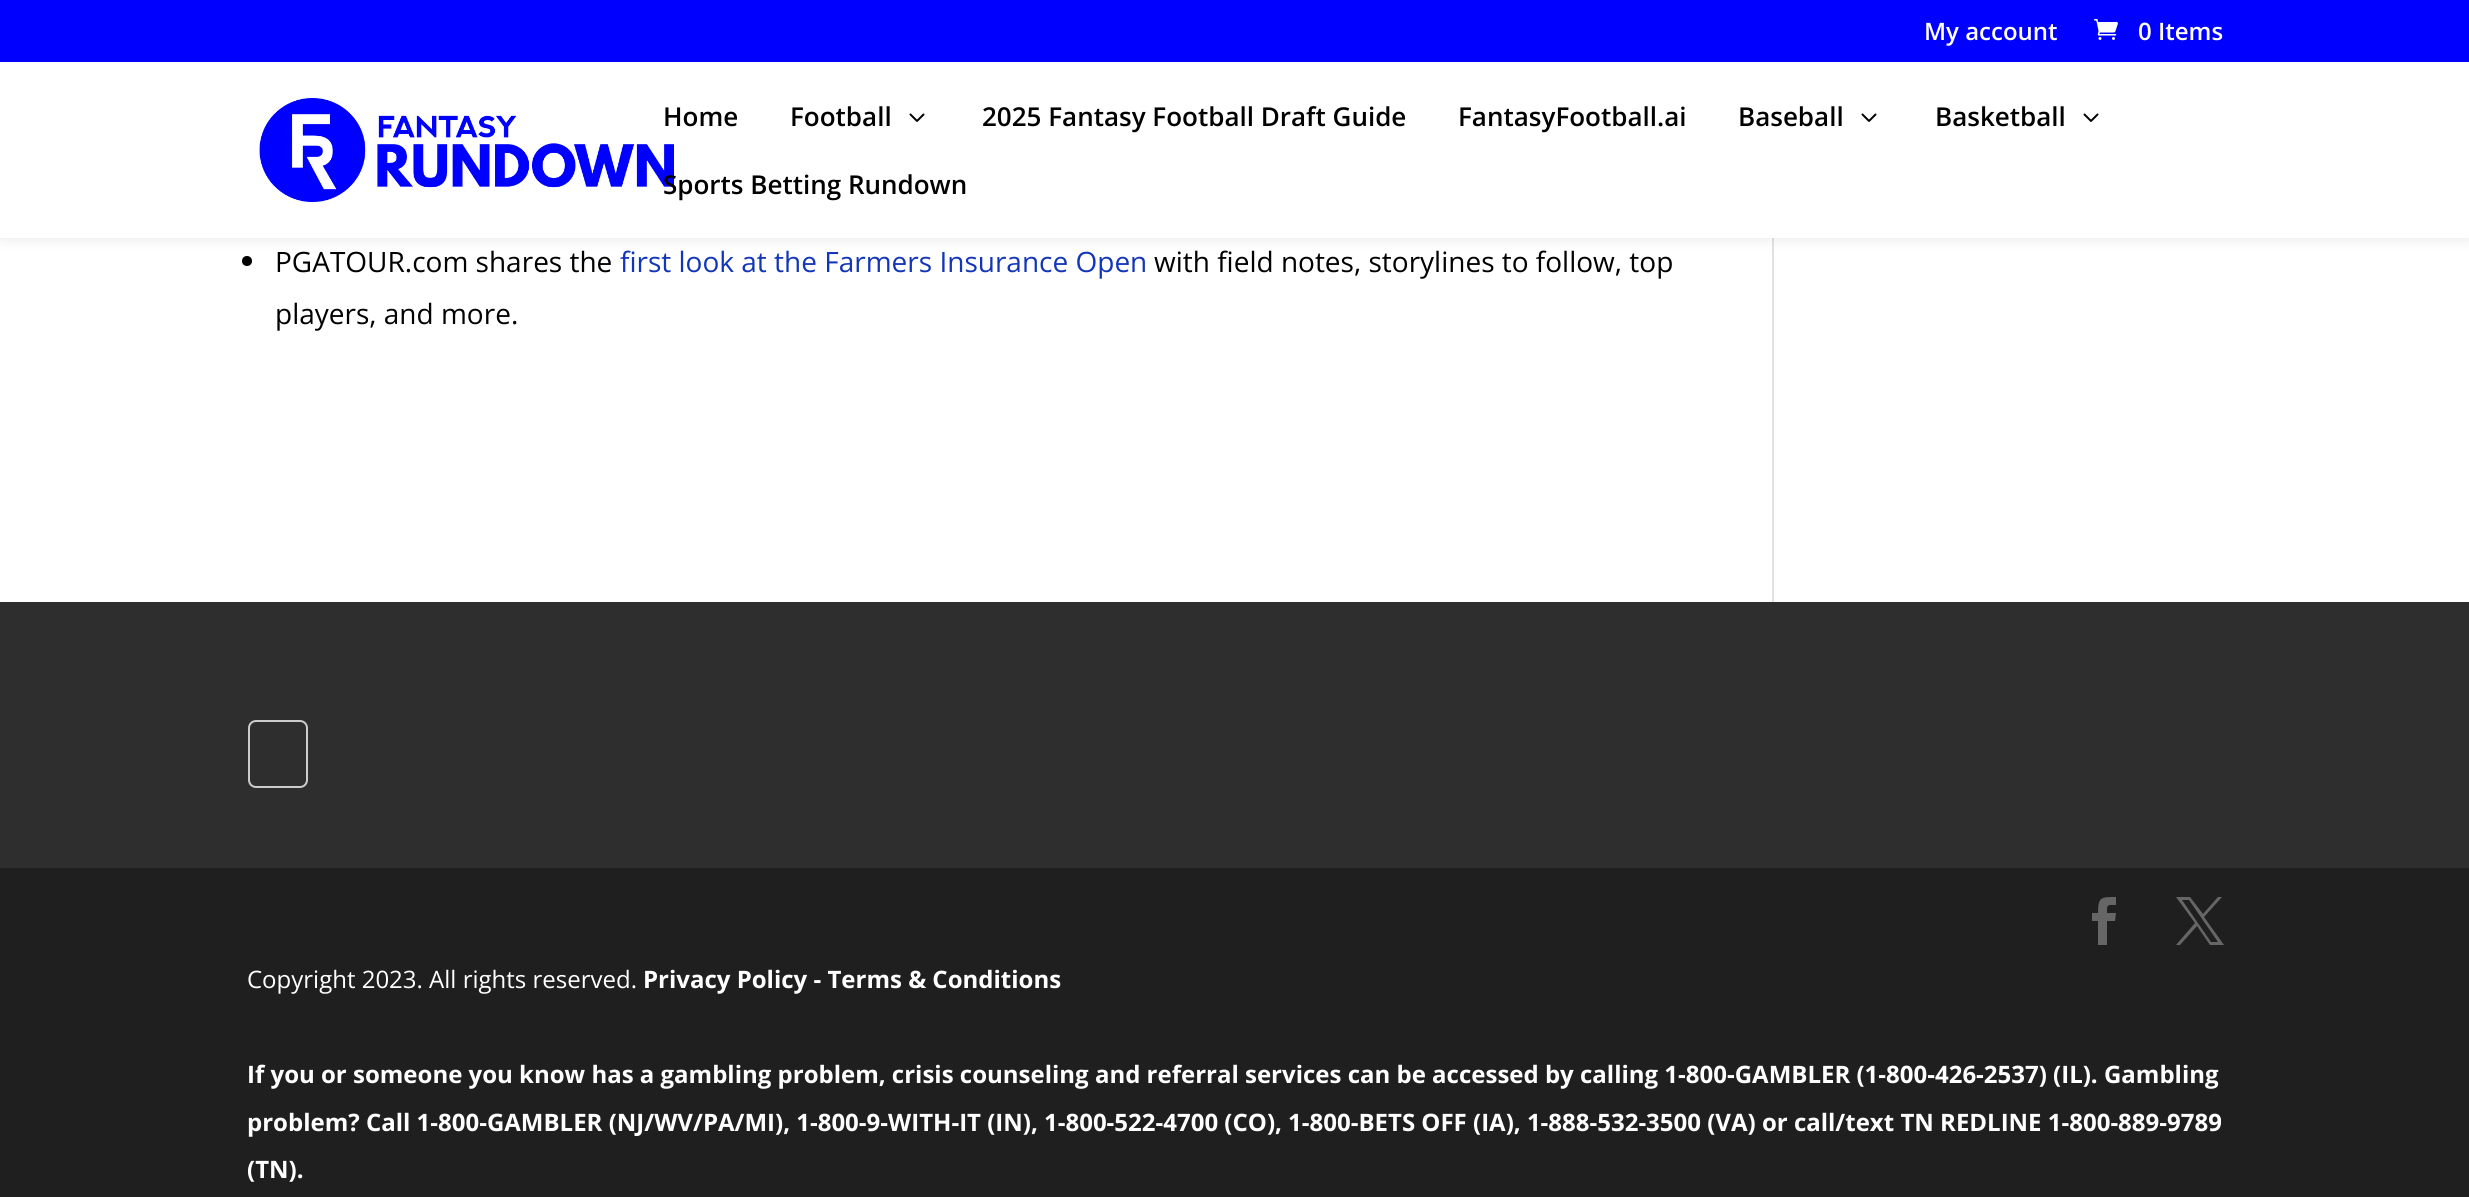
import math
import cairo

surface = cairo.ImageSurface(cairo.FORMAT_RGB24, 2469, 1197)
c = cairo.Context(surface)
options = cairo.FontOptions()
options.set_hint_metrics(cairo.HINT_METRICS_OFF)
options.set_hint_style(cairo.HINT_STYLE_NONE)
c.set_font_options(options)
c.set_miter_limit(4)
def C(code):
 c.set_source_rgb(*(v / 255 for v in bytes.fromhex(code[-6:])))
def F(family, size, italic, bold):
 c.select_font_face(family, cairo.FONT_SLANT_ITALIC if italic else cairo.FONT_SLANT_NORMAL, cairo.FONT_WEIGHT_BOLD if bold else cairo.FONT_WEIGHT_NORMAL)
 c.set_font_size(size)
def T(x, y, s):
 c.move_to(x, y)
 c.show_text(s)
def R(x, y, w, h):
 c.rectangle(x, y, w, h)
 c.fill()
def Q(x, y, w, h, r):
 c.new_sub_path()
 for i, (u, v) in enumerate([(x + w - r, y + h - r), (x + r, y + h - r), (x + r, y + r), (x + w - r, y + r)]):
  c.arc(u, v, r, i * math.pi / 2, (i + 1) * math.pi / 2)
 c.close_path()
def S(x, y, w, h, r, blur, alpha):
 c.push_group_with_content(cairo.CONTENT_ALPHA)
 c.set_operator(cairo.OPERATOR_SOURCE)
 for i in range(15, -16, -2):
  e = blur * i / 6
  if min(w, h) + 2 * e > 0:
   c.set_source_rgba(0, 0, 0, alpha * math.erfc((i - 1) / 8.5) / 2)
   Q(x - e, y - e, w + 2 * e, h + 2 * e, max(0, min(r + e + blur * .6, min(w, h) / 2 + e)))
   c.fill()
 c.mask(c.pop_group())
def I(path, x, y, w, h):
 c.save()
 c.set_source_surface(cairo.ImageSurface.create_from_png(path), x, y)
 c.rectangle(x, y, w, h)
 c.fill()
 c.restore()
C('ffffff')
c.paint()
C('000000')
c.arc(247,261,5,0,2 * math.pi)
c.fill()
C('e2e2e2')
R(1772,238,2,364)
C('000000')
S(0,62,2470,176,0,7,.1)
C('0000ff')
R(0,0,2469,62)
F('Open Sans SemiBold',24,0,0)
C('ffffff')
T(1924,40,'My account')
I('1.png',2094,19,24,21)
T(2138,40,'0 Items')
R(0,62,2469,176)
I('2.png',259,98,415,104)
F('Open Sans SemiBold',26,0,0)
C('000000')
T(663,126,'Home')
T(790,126,'Football')
I('3.png',909,113,16,9)
T(982,126,'2025 Fantasy Football Draft Guide')
T(1458,126,'FantasyFootball.ai')
T(1738,126,'Baseball')
I('3.png',1861,113,16,9)
T(1935,126,'Basketball')
I('3.png',2083,113,16,9)
T(663,194,'Sports Betting Rundown')
F('Open Sans',28,0,0)
T(275,272,'PGATOUR.com shares the')
C('1236b7')
T(620,272,'first look at the Farmers Insurance Open')
C('000000')
T(1154,272,'with field notes, storylines to follow, top')
T(275,324,'players, and more.')
C('2e2e2e')
R(0,602,2469,266)
Q(249,721,58,66,7)
C('cccccc')
c.stroke()
C('1f1f1f')
R(0,868,2469,329)
C('666666')
c.new_path()
c.move_to(2098,945)
c.line_to(2107,945)
c.line_to(2107,921)
c.line_to(2115,921)
c.line_to(2116,913)
c.line_to(2107,913)
c.curve_to(2107,904,2107,905,2116,905)
c.line_to(2116,897)
c.curve_to(2101,897,2098,897,2098,913)
c.line_to(2092,913)
c.line_to(2092,921)
c.line_to(2098,921)
c.close_path()
c.fill()
c.new_path()
c.move_to(2176,897)
c.line_to(2195,923)
c.line_to(2176,945)
c.line_to(2180,945)
c.line_to(2197,926)
c.line_to(2210,945)
c.line_to(2224,945)
c.line_to(2204,917)
c.line_to(2222,897)
c.line_to(2218,897)
c.line_to(2203,914)
c.line_to(2190,897)
c.close_path()
c.move_to(2182,900)
c.line_to(2189,900)
c.line_to(2218,942)
c.line_to(2211,942)
c.close_path()
c.fill()
F('Open Sans',24,0,1)
C('ffffff')
T(643,988,'Privacy Policy - Terms & Conditions')
T(247,1083,'If you or someone you know has a gambling problem, crisis counseling and referral services can be accessed by calling 1-800-GAMBLER (1-800-426-2537) (IL). Gambling')
T(247,1131,'problem? Call 1-800-GAMBLER (NJ/WV/PA/MI), 1-800-9-WITH-IT (IN), 1-800-522-4700 (CO), 1-800-BETS OFF (IA), 1-888-532-3500 (VA) or call/text TN REDLINE 1-800-889-9789')
T(247,1178,'(TN).')
F('Open Sans',24,0,0)
T(247,988,'Copyright 2023. All rights reserved.')
surface.write_to_png('o.png')
